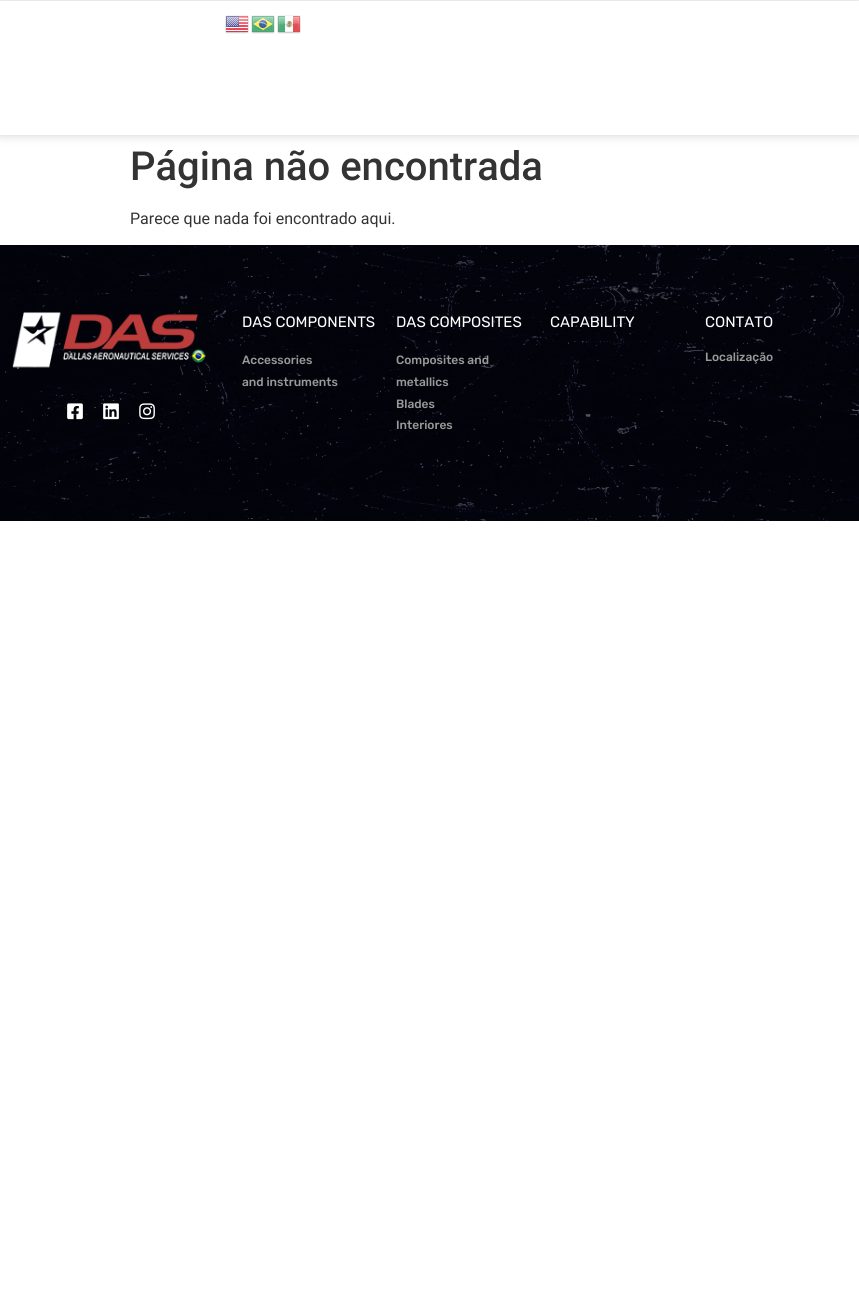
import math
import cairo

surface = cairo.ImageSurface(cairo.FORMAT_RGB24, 859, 1290)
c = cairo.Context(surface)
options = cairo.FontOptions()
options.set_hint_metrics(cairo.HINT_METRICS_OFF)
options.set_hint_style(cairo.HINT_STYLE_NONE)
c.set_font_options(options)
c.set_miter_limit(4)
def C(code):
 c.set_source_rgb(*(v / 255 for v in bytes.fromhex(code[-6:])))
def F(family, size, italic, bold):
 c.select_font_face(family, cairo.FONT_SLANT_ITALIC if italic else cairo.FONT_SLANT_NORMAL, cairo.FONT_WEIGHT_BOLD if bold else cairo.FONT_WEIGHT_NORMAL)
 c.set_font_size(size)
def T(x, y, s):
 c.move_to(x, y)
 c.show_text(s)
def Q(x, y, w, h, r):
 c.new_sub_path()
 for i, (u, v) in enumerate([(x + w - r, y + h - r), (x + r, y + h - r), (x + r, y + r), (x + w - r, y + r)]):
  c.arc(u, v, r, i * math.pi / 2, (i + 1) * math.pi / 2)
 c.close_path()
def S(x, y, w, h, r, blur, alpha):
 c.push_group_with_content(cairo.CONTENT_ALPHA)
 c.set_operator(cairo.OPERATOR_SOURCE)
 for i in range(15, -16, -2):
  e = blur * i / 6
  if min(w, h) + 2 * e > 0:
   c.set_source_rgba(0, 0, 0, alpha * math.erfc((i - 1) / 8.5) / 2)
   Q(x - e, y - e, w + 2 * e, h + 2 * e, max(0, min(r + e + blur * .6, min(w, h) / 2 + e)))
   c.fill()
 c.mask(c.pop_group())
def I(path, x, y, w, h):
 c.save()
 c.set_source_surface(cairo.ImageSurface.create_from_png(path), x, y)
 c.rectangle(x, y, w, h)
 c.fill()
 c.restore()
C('ffffff')
c.paint()
c.save()
c.set_fill_rule(cairo.FILL_RULE_EVEN_ODD)
c.new_path()
c.move_to(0,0)
c.line_to(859,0)
c.line_to(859,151)
c.line_to(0,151)
c.close_path()
c.move_to(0,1)
c.line_to(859,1)
c.line_to(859,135)
c.line_to(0,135)
c.close_path()
c.clip()
C('000000')
S(0,1,859,134,0,5,.19)
c.restore()
I('1.png',225,15,24,19)
I('2.png',251,15,24,19)
I('3.png',277,15,24,19)
F('Roboto Medium',40,0,0)
C('333333')
T(130,180,'Página não encontrada')
F('Roboto',16,0,0)
T(130,224,'Parece que nada foi encontrado aqui.')
I('4.png',0,245,859,276)
I('5.png',12,312,194,56)
I('6.png',67,403,16,17)
I('7.png',103,403,16,17)
I('8.png',139,403,16,17)
F('Rubik',15,0,0)
C('ffffff')
T(242,327,'DAS COMPONENTS')
F('Rubik Medium',12,0,0)
C('999999')
T(242,364,'Accessories')
T(242,386,'and instruments')
F('Rubik',15,0,0)
C('ffffff')
T(396,327,'DAS COMPOSITES')
F('Rubik Medium',12,0,0)
C('999999')
T(396,364,'Composites and')
T(396,386,'metallics')
T(396,408,'Blades')
T(396,429,'Interiores')
F('Rubik',15,0,0)
C('ffffff')
T(550,327,'CAPABILITY')
T(705,327,'CONTATO')
F('Rubik Medium',12,0,0)
C('999999')
T(705,361,'Localização')
surface.write_to_png('o.png')
